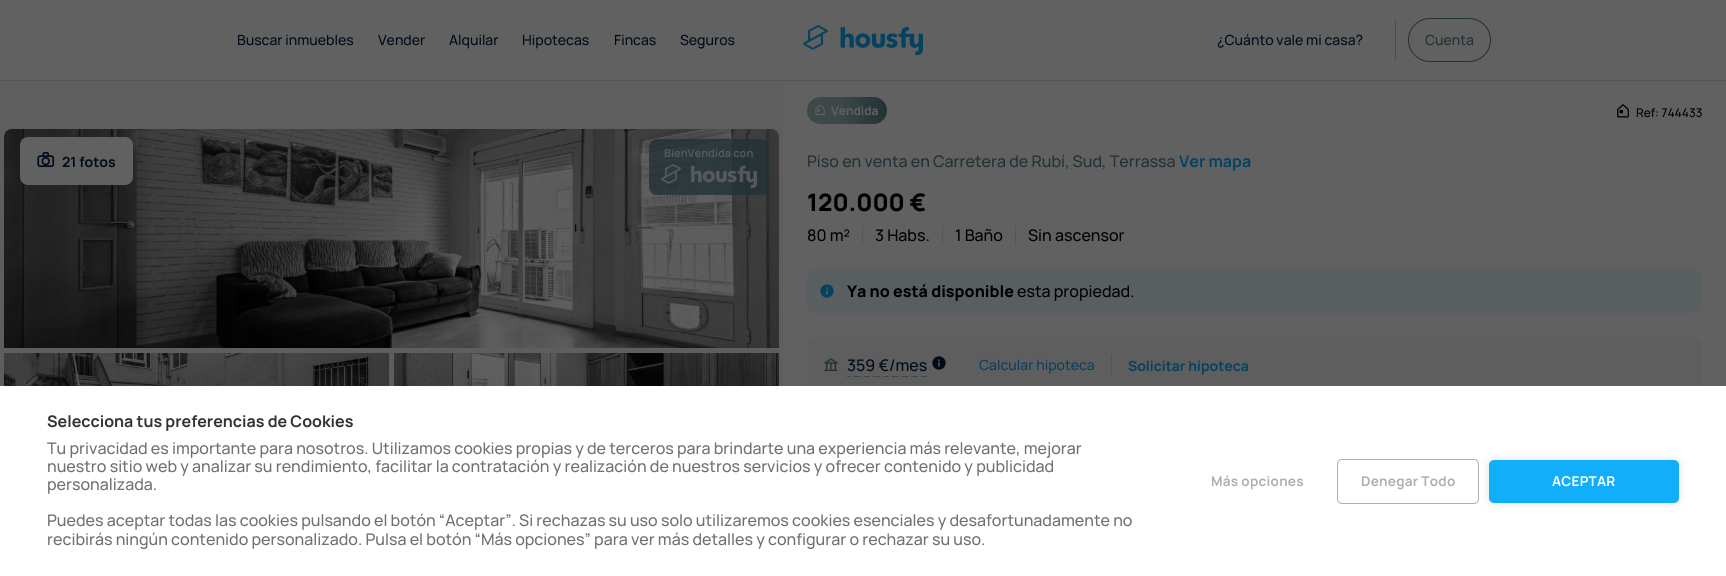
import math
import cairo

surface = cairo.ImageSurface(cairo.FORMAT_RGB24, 1726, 576)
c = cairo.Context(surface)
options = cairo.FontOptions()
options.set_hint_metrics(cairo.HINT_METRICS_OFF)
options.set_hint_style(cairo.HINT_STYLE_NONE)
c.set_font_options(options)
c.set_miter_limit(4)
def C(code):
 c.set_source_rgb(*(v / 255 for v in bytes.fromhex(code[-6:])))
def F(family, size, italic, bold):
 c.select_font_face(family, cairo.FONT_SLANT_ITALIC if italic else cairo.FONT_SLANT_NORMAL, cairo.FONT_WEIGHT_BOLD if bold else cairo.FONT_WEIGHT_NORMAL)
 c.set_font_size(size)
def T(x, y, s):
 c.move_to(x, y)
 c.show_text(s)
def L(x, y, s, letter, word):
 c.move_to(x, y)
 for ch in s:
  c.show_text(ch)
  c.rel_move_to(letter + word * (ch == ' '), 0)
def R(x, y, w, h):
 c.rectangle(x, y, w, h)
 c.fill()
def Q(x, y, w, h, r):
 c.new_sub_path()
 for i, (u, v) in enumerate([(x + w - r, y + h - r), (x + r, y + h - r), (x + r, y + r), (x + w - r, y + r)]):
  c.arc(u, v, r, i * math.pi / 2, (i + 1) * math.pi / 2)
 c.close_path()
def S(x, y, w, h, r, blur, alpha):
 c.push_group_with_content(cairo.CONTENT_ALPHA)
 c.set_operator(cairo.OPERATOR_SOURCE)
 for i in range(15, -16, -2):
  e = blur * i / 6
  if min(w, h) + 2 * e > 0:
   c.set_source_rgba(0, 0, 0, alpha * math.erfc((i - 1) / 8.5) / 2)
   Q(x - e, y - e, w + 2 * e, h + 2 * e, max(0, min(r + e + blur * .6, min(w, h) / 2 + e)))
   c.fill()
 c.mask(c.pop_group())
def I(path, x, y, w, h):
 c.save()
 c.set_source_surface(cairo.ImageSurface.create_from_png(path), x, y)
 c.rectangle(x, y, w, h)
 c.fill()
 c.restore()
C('616161')
c.paint()
F('Manrope Medium',14,0,0)
C('000b1a')
T(237,45,'Buscar inmuebles')
T(378,45,'Vender')
T(449,45,'Alquilar')
T(522,45,'Hipotecas')
T(614,45,'Fincas')
T(680,45,'Seguros')
I('1.png',803,25,120,30)
T(1217,45,'¿Cuánto vale mi casa?')
C('484e4f')
R(1395,20,1,40)
Q(1408.5,18.5,82,43,21.5)
C('223135')
c.set_line_width(1)
c.stroke()
T(1425,45,'Cuenta')
C('505653')
R(0,80,1726,1)
C('5d5e5d')
R(0,81,783,305)
I('2.png',4,129,775,219)
c.set_source_rgba(0.133,0.192,0.208,0.8)
Q(649,139,120,56,8)
c.fill()
F('Manrope',11,0,1)
C('565959')
T(664,157,'BienVendida con')
I('3.png',661,164,96,24)
C('616161')
Q(20,137,113,48,8)
c.fill()
I('4.png',37,152,18,15)
F('Manrope',14,0,1)
C('000b1a')
T(62,167,'21 fotos')
I('5.png',4,353,385,33)
I('6.png',394,353,385,33)
gradient = cairo.LinearGradient(807,111,887,111)
gradient.add_color_stop_rgba(.4,0.243,0.282,0.286,1)
gradient.add_color_stop_rgba(1,0.133,0.192,0.208,1)
c.set_source(gradient)
Q(807,97,80,27,13.5)
c.fill()
I('7.png',815,104,10,12)
F('Manrope',12,0,1)
C('616161')
T(831,115,'Vendida')
I('8.png',1617,104,12,14)
F('Manrope Medium',12,0,0)
C('000000')
T(1636,117,'Ref: 744433')
F('Manrope Medium',16,0,0)
C('223135')
T(807,167,'Piso en venta en Carretera de Rubí, Sud, Terrassa')
F('Manrope',16,0,1)
C('06425f')
T(1179,167,'Ver mapa')
F('Manrope ExtraBold',24,0,0)
C('000000')
T(807,211,'120.000 €')
C('515856')
R(862,225,1,20)
F('Manrope Medium',16,0,0)
C('000000')
T(807,241,'80 m²')
C('515856')
R(942,225,1,20)
C('000000')
T(875,241,'3 Habs.')
C('515856')
R(1015,225,1,20)
C('000000')
T(955,241,'1 Baño')
T(1028,241,'Sin ascensor')
C('595e61')
Q(807,269,895,44,8)
c.fill()
I('9.png',820,284,14,14)
F('Manrope ExtraBold',16,0,0)
C('000000')
T(847,297,'Ya no está disponible')
F('Manrope Medium',16,0,0)
T(1017,297,'esta propiedad.')
C('5d5e5d')
Q(807,337,895,99,8)
c.fill()
I('10.png',824,358,14,13)
C('3e4849')
R(847,376,4,1)
R(854,376,7,1)
R(864,376,6,1)
R(873,376,7,1)
R(883,376,6,1)
R(892,376,7,1)
R(902,376,6,1)
R(911,376,7,1)
R(921,376,6,1)
C('000b1a')
T(847,371,'359 €/mes')
I('11.png',932,356,14,14)
C('505653')
R(1111,355,1,20)
F('Manrope Medium',14,0,0)
C('06425f')
T(979,370,'Calcular hipoteca')
F('Manrope',14,0,1)
T(1128,371,'Solicitar hipoteca')
C('ffffff')
R(0,386,1726,190)
F('Manrope',16,0,1)
C('333333')
T(47,427,'Selecciona tus preferencias de Cookies')
F('Manrope Medium',16,0,0)
C('707070')
T(47,454,'Tu privacidad es importante para nosotros. Utilizamos cookies propias y de terceros para brindarte una experiencia más relevante, mejorar')
T(47,472,'nuestro sitio web y analizar su rendimiento, facilitar la contratación y realización de nuestros servicios y ofrecer contenido y publicidad')
T(47,490,'personalizada.')
T(47,526,'Puedes aceptar todas las cookies pulsando el botón “Aceptar”. Si rechazas su uso solo utilizaremos cookies esenciales y desafortunadamente no')
T(47,545,'recibirás ningún contenido personalizado. Pulsa el botón “Más opciones” para ver más detalles y configurar o rechazar su uso.')
F('Manrope',13.5,0,1)
C('afafaf')
L(1211,486,'Más opciones',.25,0)
Q(1337.5,459.5,141,44,4.5)
c.stroke()
L(1361,486,'Denegar Todo',.25,0)
C('000000')
S(1489,460,190,43,5,5,.12)
C('11aefa')
Q(1489,460,190,43,5)
c.fill()
C('ffffff')
L(1552,486,'ACEPTAR',.25,0)
surface.write_to_png('o.png')
